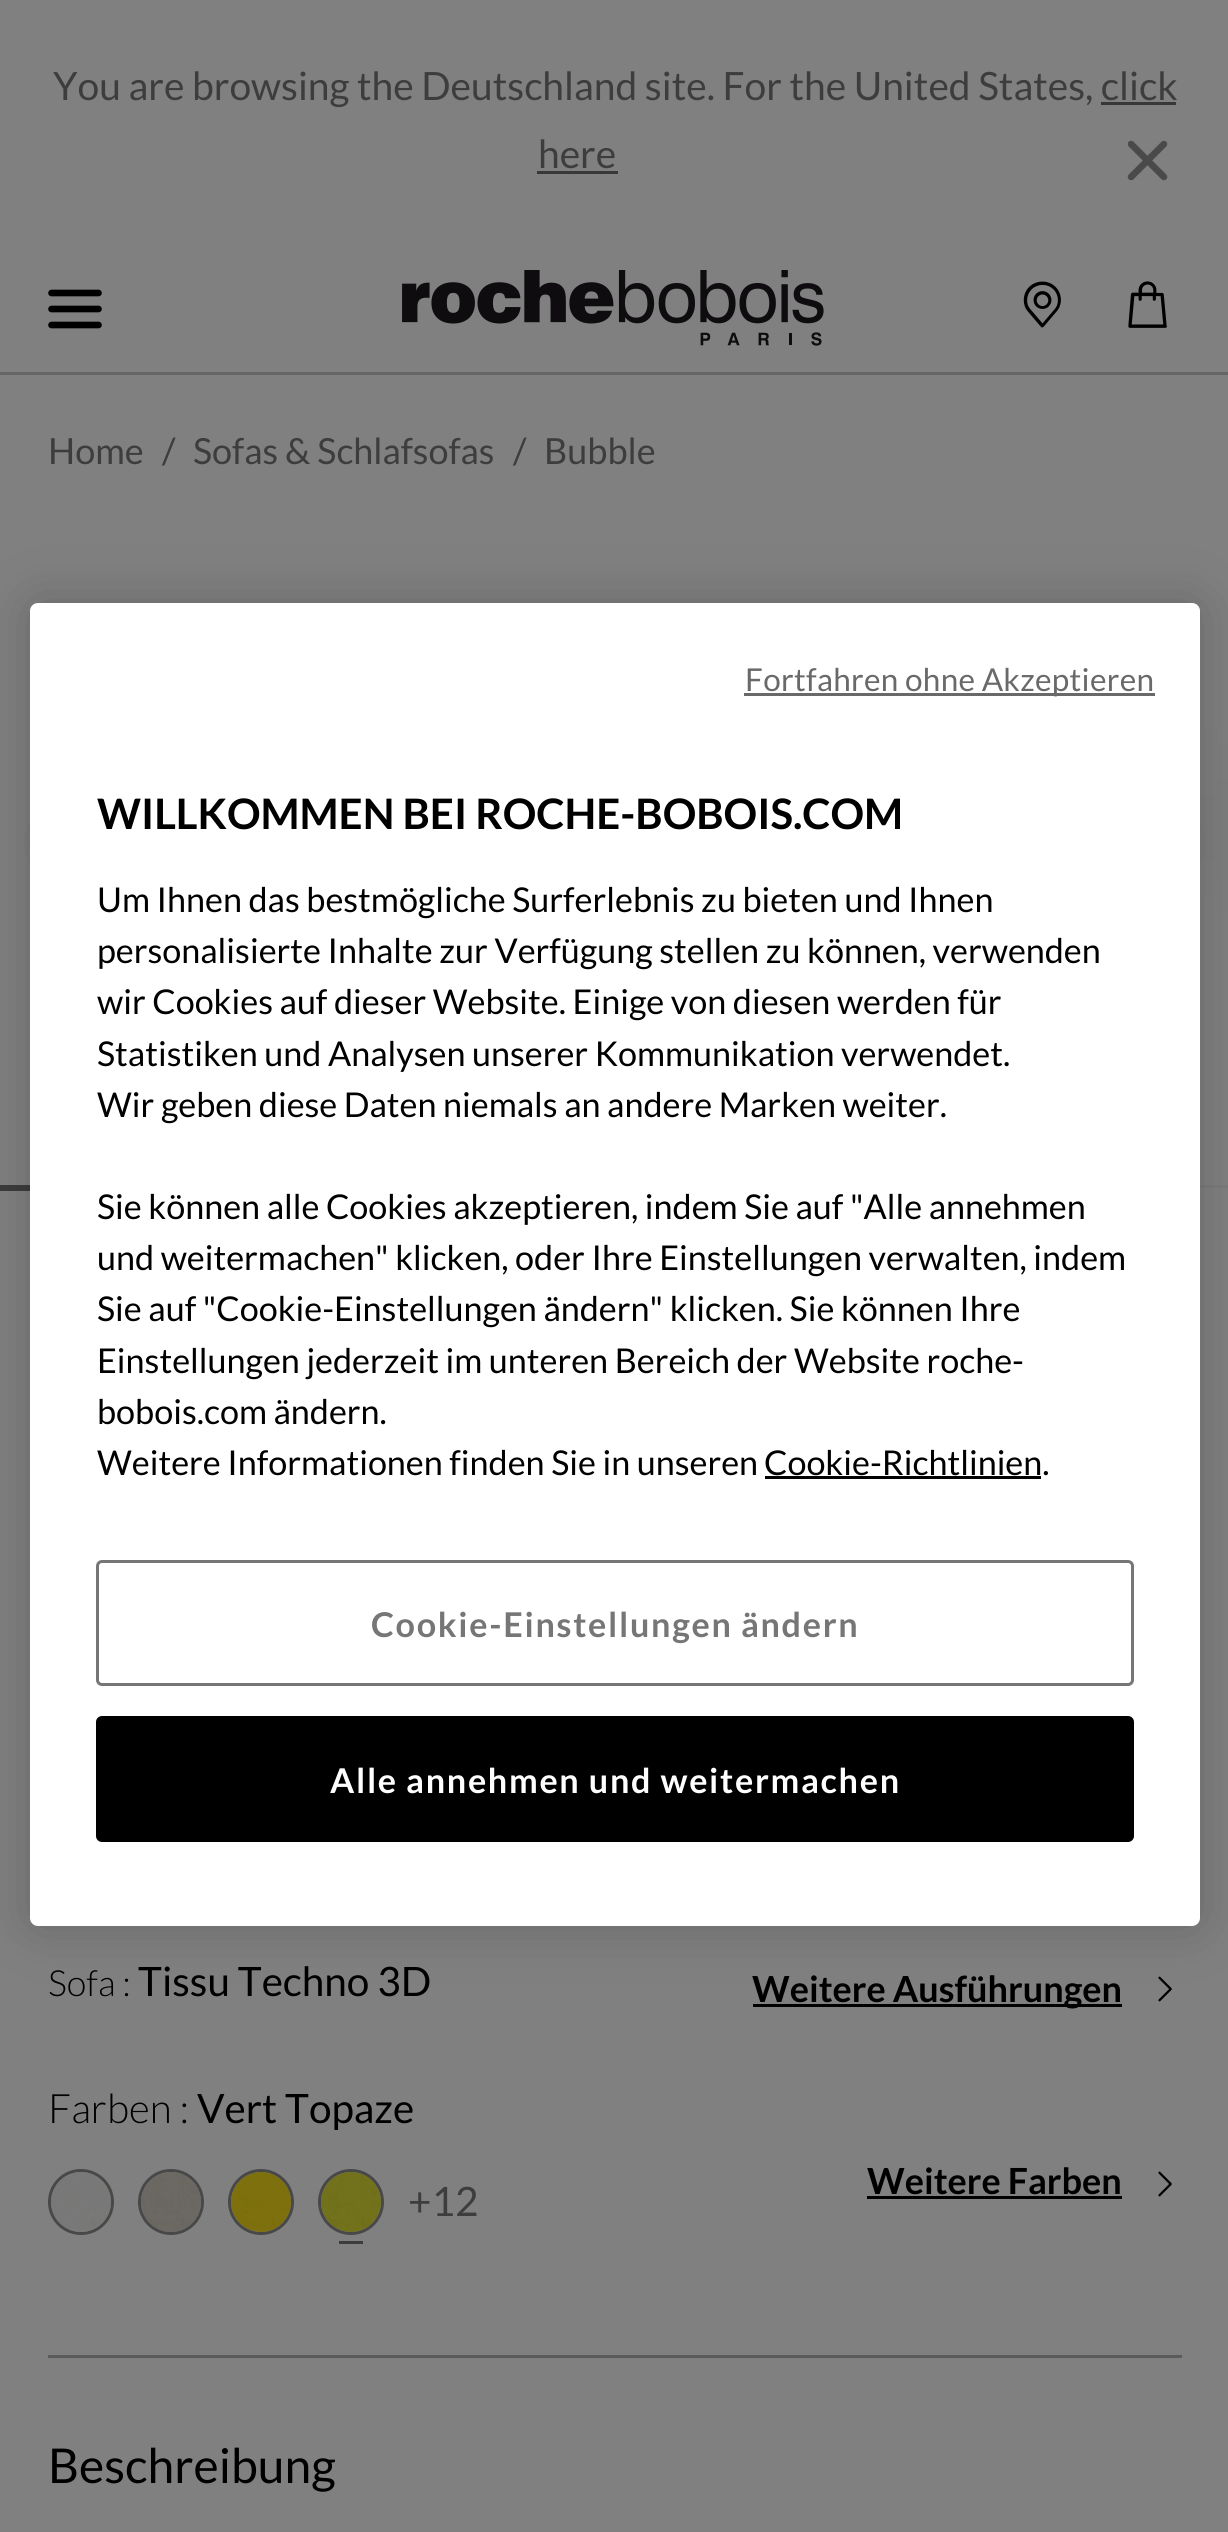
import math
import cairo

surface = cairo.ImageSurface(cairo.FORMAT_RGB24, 1228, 2532)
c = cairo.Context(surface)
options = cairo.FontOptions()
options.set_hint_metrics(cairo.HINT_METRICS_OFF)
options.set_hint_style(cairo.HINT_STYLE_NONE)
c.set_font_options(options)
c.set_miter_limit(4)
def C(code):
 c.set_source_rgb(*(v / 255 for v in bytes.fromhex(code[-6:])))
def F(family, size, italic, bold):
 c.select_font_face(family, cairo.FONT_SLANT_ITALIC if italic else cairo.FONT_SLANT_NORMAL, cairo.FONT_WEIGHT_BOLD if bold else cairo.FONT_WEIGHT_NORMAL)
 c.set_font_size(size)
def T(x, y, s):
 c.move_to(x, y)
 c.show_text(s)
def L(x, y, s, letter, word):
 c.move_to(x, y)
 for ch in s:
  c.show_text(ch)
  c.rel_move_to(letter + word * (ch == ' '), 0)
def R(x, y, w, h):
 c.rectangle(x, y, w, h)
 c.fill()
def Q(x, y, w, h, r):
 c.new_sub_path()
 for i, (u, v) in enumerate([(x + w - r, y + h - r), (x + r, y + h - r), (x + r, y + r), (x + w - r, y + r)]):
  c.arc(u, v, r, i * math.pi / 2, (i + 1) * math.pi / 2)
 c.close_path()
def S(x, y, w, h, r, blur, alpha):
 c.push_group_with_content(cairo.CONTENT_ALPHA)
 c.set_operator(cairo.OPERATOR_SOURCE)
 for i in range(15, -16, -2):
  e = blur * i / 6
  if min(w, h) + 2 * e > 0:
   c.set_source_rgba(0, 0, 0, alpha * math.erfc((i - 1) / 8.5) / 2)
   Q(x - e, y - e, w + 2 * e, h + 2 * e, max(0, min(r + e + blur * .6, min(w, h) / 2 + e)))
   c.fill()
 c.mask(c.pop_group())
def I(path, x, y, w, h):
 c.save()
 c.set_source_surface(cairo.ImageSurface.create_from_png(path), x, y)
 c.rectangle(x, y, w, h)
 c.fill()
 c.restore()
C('808080')
c.paint()
C('666666')
R(0,372,1228,3)
F('Lato',39,0,0)
C('3d3d3d')
T(53,100,'You are browsing the Deutschland site. For the United States, click')
T(538,168,'here')
C('383838')
R(1101,102,75,3)
R(537,171,81,3)
I('1.png',1127,140,41,41)
c.new_path()
c.move_to(51.5,293)
c.line_to(98.5,293)
c.move_to(51.5,309)
c.line_to(98.5,309)
c.move_to(51.5,325)
c.line_to(98.5,325)
C('000000')
c.set_line_width(6.6)
c.set_line_cap(cairo.LINE_CAP_ROUND)
c.stroke()
I('2.png',402,270,422,76)
I('3.png',1023,281,38,47)
I('4.png',1128,281,39,47)
F('Lato',36,0,0)
C('3d3d3d')
T(48,464,'Home')
T(162,464,'/')
T(193,464,'Sofas & Schlafsofas')
T(513,464,'/')
T(544,464,'Bubble')
I('5.png',0,498,1228,693)
C('7d7d7d')
c.arc(66,843,42,0,2 * math.pi)
c.fill()
c.arc(1164,843,42,0,2 * math.pi)
c.fill()
C('3c3c3c')
R(0,1185,30,6)
C('7b7b7b')
R(1200,1185,28,3)
F('Lato Light',36,0,0)
C('000000')
T(48,1996,'Sofa :')
F('Lato',40.5,0,0)
T(138,1996,'Tissu Techno 3D')
R(753,2004,369,3)
F('Lato',36,0,1)
T(752,2002,'Weitere Ausführungen')
I('6.png',1158,1976,14,26)
F('Lato Light',40.5,0,0)
T(48,2123,'Farben :')
F('Lato',40.5,0,0)
T(197,2123,'Vert Topaze')
C('787878')
c.new_path()
c.arc(81,2202,31.5,0,2 * math.pi)
c.fill_preserve()
C('484848')
c.set_line_width(3)
c.set_line_cap(cairo.LINE_CAP_BUTT)
c.stroke()
I('7.png',51,2172,60,60)
C('787878')
c.arc(171,2202,31.5,0,2 * math.pi)
c.fill_preserve()
C('484848')
c.stroke()
I('8.png',141,2172,60,60)
C('787878')
c.arc(261,2202,31.5,0,2 * math.pi)
c.fill_preserve()
C('484848')
c.stroke()
I('9.png',231,2172,60,60)
C('787878')
c.arc(351,2202,31.5,0,2 * math.pi)
c.fill_preserve()
C('484848')
c.stroke()
I('10.png',321,2172,60,60)
C('3c3c3c')
R(339,2241,24,3)
C('3d3d3d')
T(408,2216,'+12')
F('Lato',36,0,1)
C('000000')
T(867,2194,'Weitere Farben')
R(867,2196,255,3)
I('6.png',1158,2171,14,26)
C('5b5b5b')
R(48,2355,1134,3)
F('Lato',48,0,0)
C('000000')
T(48,2483,'Beschreibung')
C('000000')
S(30,603,1170,1323,8,27,.2)
C('ffffff')
Q(30,603,1170,1323,8)
c.fill()
C('696969')
R(744,693,411,3)
F('Lato',31.5,0,0)
L(745,691,'Fortfahren ohne Akzeptieren',.3,0)
F('Lato',42,0,1)
C('000000')
T(97,829,'WILLKOMMEN BEI ROCHE-BOBOIS.COM')
F('Lato',34.15,0,0)
T(97,912,'Um Ihnen das bestmögliche Surferlebnis zu bieten und Ihnen')
T(97,963,'personalisierte Inhalte zur Verfügung stellen zu können, verwenden')
T(97,1014,'wir Cookies auf dieser Website. Einige von diesen werden für')
T(97,1066,'Statistiken und Analysen unserer Kommunikation verwendet.')
T(97,1117,'Wir geben diese Daten niemals an andere Marken weiter.')
T(97,1219,'Sie können alle Cookies akzeptieren, indem Sie auf "Alle annehmen')
T(97,1270,'und weitermachen" klicken, oder Ihre Einstellungen verwalten, indem')
T(97,1321,'Sie auf "Cookie-Einstellungen ändern" klicken. Sie können Ihre')
T(97,1373,'Einstellungen jederzeit im unteren Bereich der Website roche-')
T(97,1424,'bobois.com ändern.')
T(97,1475,'Weitere Informationen finden Sie in unseren')
T(764,1475,'Cookie-Richtlinien.')
R(765,1476,276,3)
Q(97.5,1561.5,1035,123,4.5)
C('767676')
c.stroke()
F('Lato',34.15,0,1)
L(371,1637,'Cookie-Einstellungen ändern',1.7,0)
C('000000')
Q(97.5,1717.5,1035,123,4.5)
c.fill_preserve()
c.stroke()
C('ffffff')
L(330,1793,'Alle annehmen und weitermachen',1.7,0)
surface.write_to_png('o.png')
